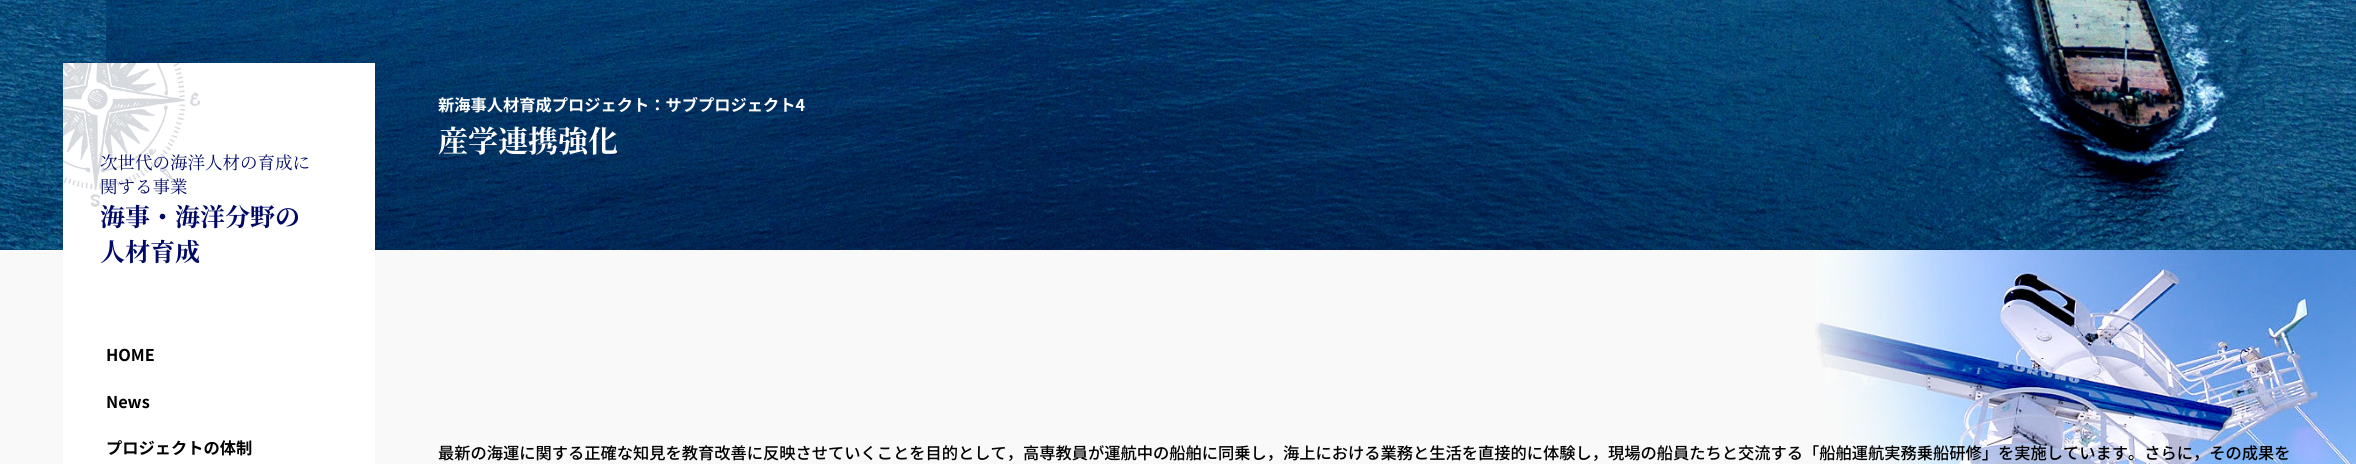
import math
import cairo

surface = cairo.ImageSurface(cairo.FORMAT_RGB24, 2356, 464)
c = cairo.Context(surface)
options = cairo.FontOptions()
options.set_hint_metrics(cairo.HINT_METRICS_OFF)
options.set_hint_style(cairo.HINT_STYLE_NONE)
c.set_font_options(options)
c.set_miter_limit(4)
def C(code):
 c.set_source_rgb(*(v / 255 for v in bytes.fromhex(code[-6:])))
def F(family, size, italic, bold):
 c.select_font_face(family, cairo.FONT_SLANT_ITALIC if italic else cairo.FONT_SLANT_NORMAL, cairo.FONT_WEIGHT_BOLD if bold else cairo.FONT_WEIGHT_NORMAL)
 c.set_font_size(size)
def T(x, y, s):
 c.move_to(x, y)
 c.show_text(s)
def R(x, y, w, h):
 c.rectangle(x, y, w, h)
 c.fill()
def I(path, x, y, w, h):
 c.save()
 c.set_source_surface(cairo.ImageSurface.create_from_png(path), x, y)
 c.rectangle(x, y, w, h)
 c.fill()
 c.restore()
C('f9f9f9')
c.paint()
I('2.png',0,0,2356,250)
C('ffffff')
R(63,63,312,401)
I('1.png',63,63,138,144)
F('Noto Serif JP',17.5,0,0)
C('000965')
T(100,169,'次世代の海洋人材の育成に')
T(100,193,'関する事業')
F('Noto Serif JP',25,0,1)
T(100,226,'海事・海洋分野の')
T(100,261,'人材育成')
F('Noto Sans JP',16.25,0,1)
C('000000')
T(106,361,'HOME')
T(106,408,'News')
T(106,454,'プロジェクトの体制')
C('ffffff')
T(438,111,'新海事人材育成プロジェクト：サブプロジェクト4')
F('Noto Serif JP',30,0,1)
T(438,152,'産学連携強化')
I('3.png',1815,250,541,214)
F('Noto Sans JP Medium',16.25,0,0)
C('000000')
T(438,459,'最新の海運に関する正確な知見を教育改善に反映させていくことを目的として，高専教員が運航中の船舶に同乗し，海上における業務と生活を直接的に体験し，現場の船員たちと交流する「船舶運航実務乗船研修」を実施しています。さらに，その成果を')
surface.write_to_png('o.png')
